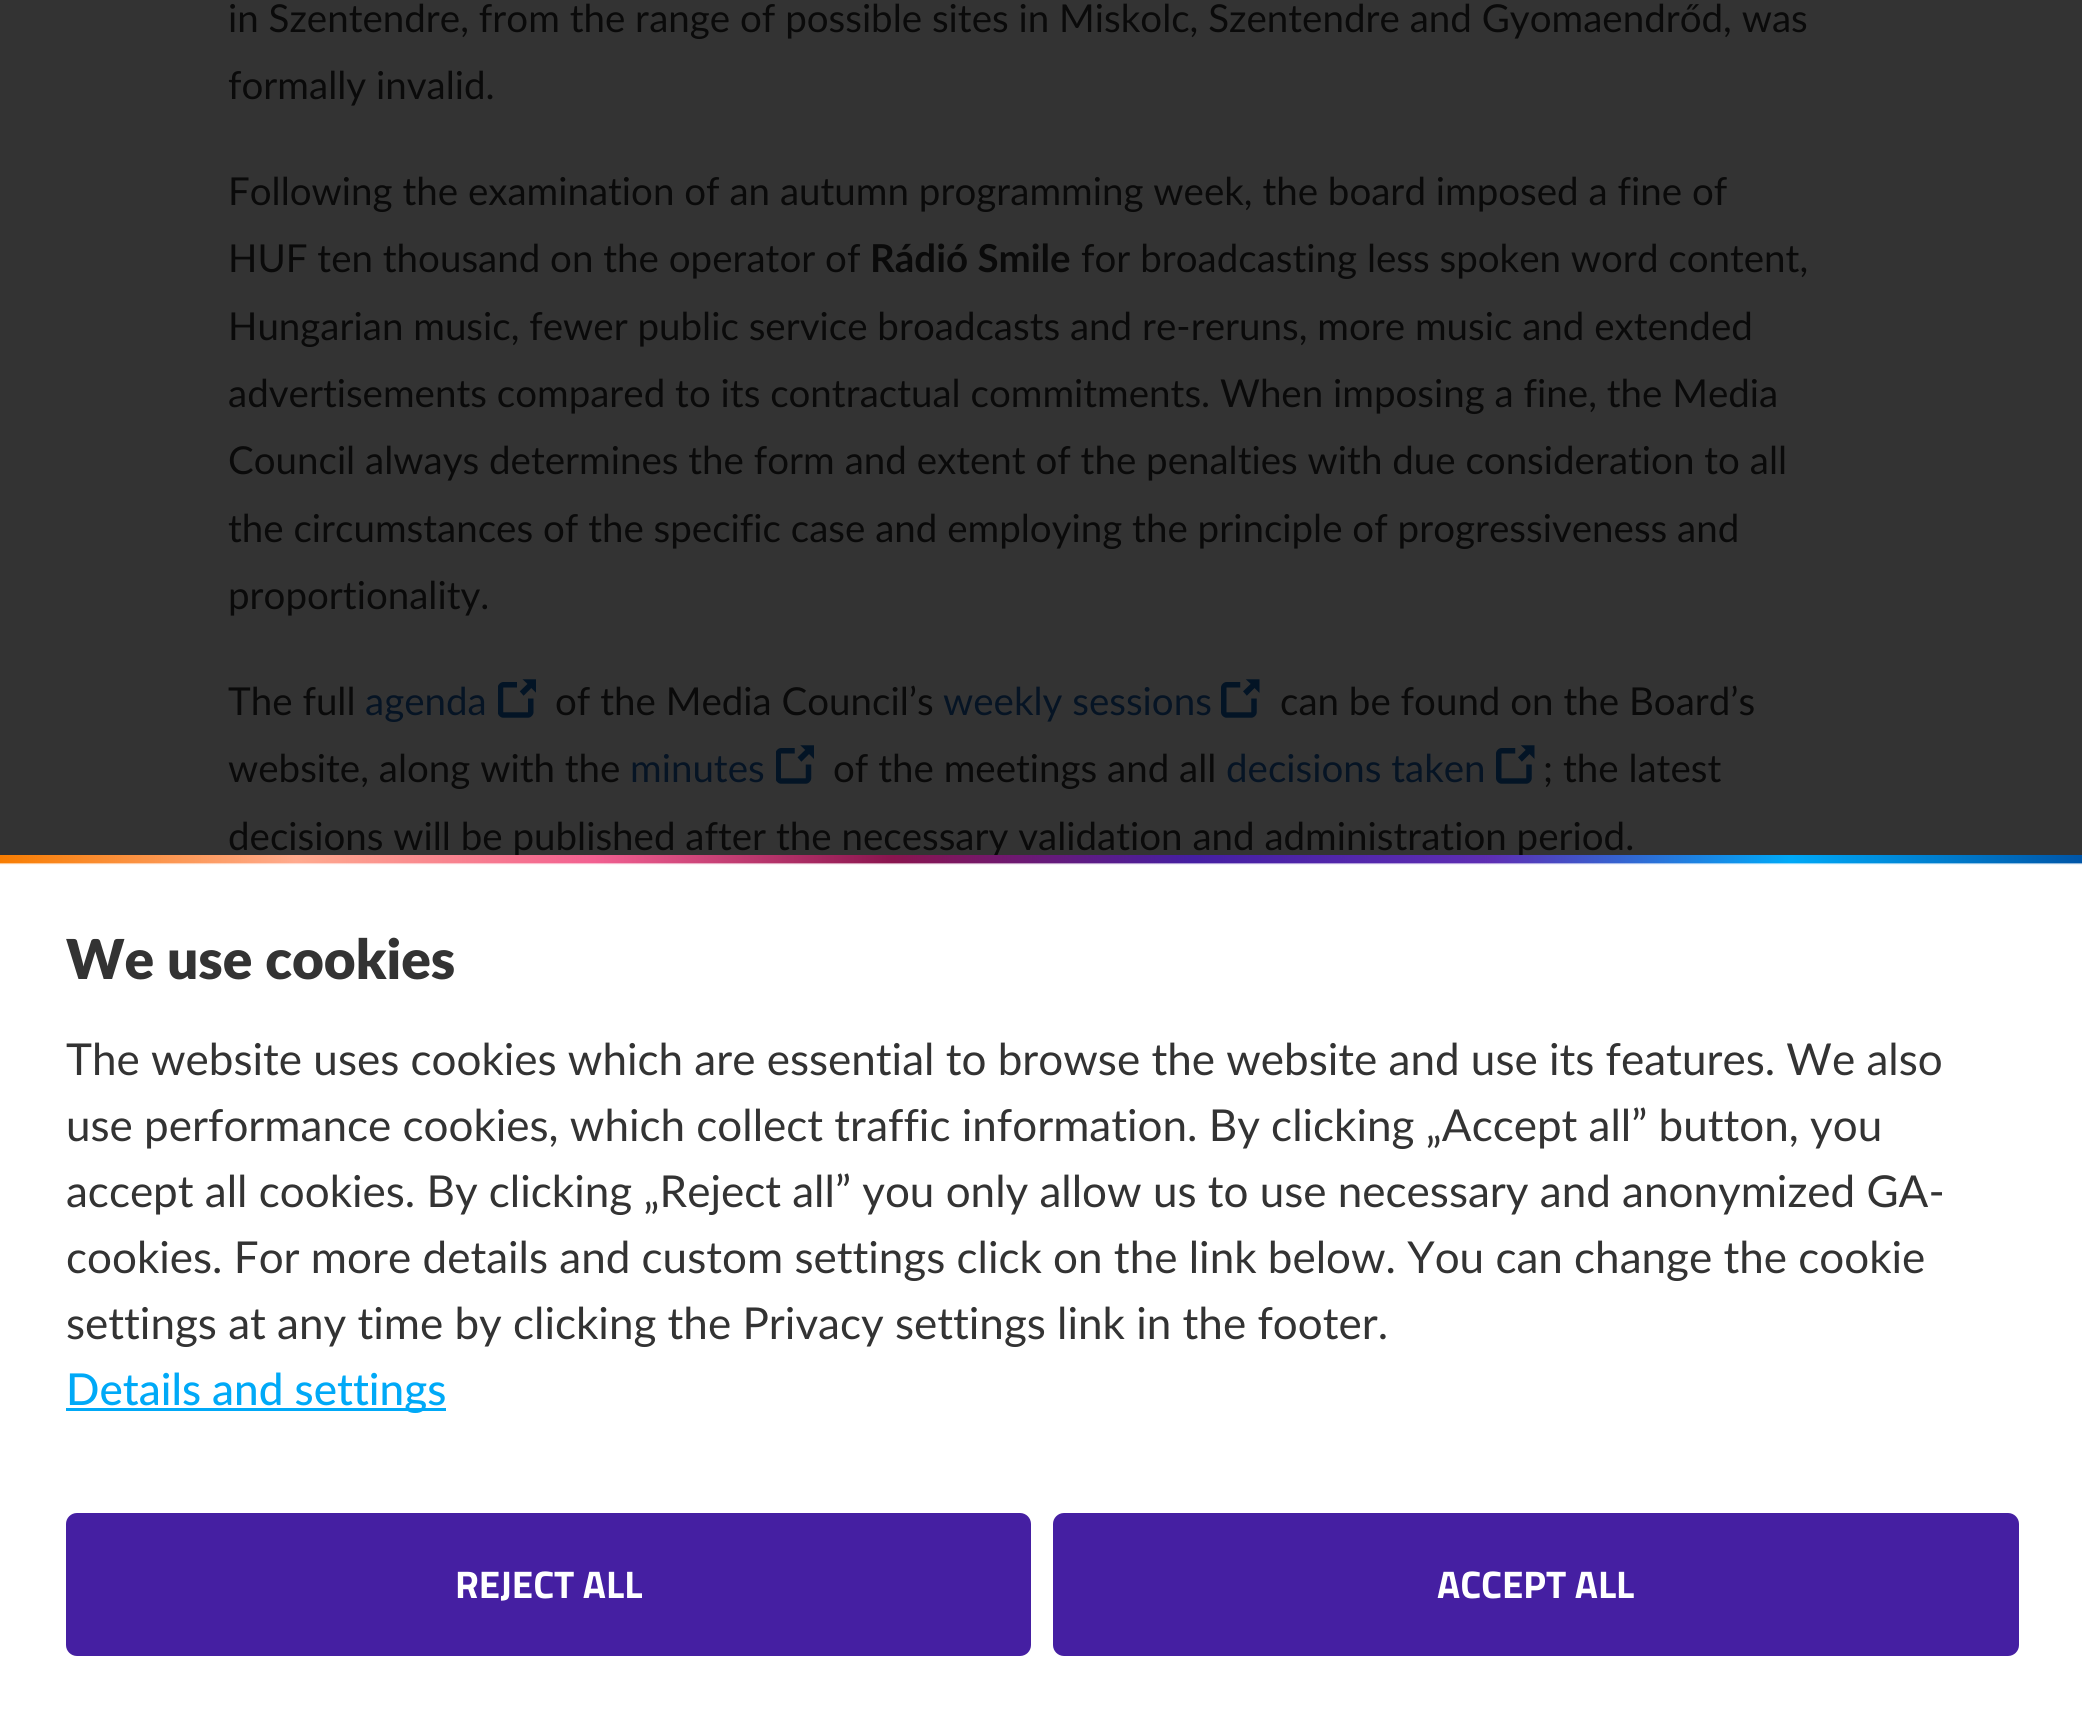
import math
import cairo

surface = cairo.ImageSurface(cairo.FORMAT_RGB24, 2082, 1719)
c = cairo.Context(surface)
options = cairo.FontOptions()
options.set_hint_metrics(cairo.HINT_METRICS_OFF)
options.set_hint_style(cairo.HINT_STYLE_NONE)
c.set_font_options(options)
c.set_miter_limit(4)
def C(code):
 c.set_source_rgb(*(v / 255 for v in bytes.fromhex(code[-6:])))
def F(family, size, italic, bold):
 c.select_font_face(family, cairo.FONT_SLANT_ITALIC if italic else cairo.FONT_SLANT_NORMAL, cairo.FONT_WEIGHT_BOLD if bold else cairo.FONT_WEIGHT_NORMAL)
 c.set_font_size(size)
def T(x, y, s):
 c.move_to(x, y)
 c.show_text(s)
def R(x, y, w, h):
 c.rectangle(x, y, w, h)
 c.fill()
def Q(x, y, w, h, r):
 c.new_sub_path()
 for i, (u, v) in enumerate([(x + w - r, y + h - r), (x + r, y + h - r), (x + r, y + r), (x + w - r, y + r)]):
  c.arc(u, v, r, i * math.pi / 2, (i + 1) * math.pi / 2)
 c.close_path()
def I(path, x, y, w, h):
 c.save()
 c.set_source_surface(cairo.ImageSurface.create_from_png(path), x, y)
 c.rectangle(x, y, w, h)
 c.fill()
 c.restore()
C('333333')
c.paint()
F('Lato',38.5,0,0)
C('0a0a0a')
T(228,32,'in Szentendre, from the range of possible sites in Miskolc, Szentendre and Gyomaendrőd, was')
T(228,99,'formally invalid.')
T(228,205,'Following the examination of an autumn programming week, the board imposed a fine of')
T(228,272,'HUF ten thousand on the operator of')
F('Lato',38.5,0,1)
T(870,272,'Rádió Smile')
F('Lato',38.5,0,0)
T(1081,272,'for broadcasting less spoken word content,')
T(228,340,'Hungarian music, fewer public service broadcasts and re-reruns, more music and extended')
T(228,407,'advertisements compared to its contractual commitments. When imposing a fine, the Media')
T(228,474,'Council always determines the form and extent of the penalties with due consideration to all')
T(228,542,'the circumstances of the specific case and employing the principle of progressiveness and')
T(228,609,'proportionality.')
T(228,715,'The full')
C('061424')
T(365,715,'agenda')
I('1.png',498,679,38,39)
C('0a0a0a')
T(555,715,'of the Media Council’s')
C('061424')
T(943,715,'weekly sessions')
I('2.png',1221,679,39,39)
C('0a0a0a')
T(1280,715,'can be found on the Board’s')
T(228,782,'website, along with the')
C('061424')
T(630,782,'minutes')
I('3.png',776,745,38,39)
C('0a0a0a')
T(833,782,'of the meetings and all')
C('061424')
T(1226,782,'decisions taken')
I('2.png',1496,745,39,39)
C('0a0a0a')
T(1543,782,'; the latest')
T(228,850,'decisions will be published after the necessary validation and administration period.')
C('ffffff')
R(0,863,2082,856)
I('4.png',0,855,2082,10)
F('Lato Black',55,0,0)
C('333333')
T(66,979,'We use cookies')
F('Lato',44,0,0)
T(66,1075,'The website uses cookies which are essential to browse the website and use its features. We also')
T(66,1141,'use performance cookies, which collect traffic information. By clicking „Accept all” button, you')
T(66,1207,'accept all cookies. By clicking „Reject all” you only allow us to use necessary and anonymized GA-')
T(66,1273,'cookies. For more details and custom settings click on the link below. You can change the cookie')
T(66,1339,'settings at any time by clicking the Privacy settings link in the footer.')
C('00a9f7')
R(66,1408,380,3)
F('Lato Medium',44,0,0)
T(66,1405,'Details and settings')
C('451fa2')
Q(66,1513,965,143,11)
c.fill()
F('Titillium Web',38.5,0,1)
C('ffffff')
T(455,1598,'REJECT ALL')
C('451fa2')
Q(1053,1513,966,143,11)
c.fill()
C('ffffff')
T(1437,1598,'ACCEPT ALL')
surface.write_to_png('o.png')
